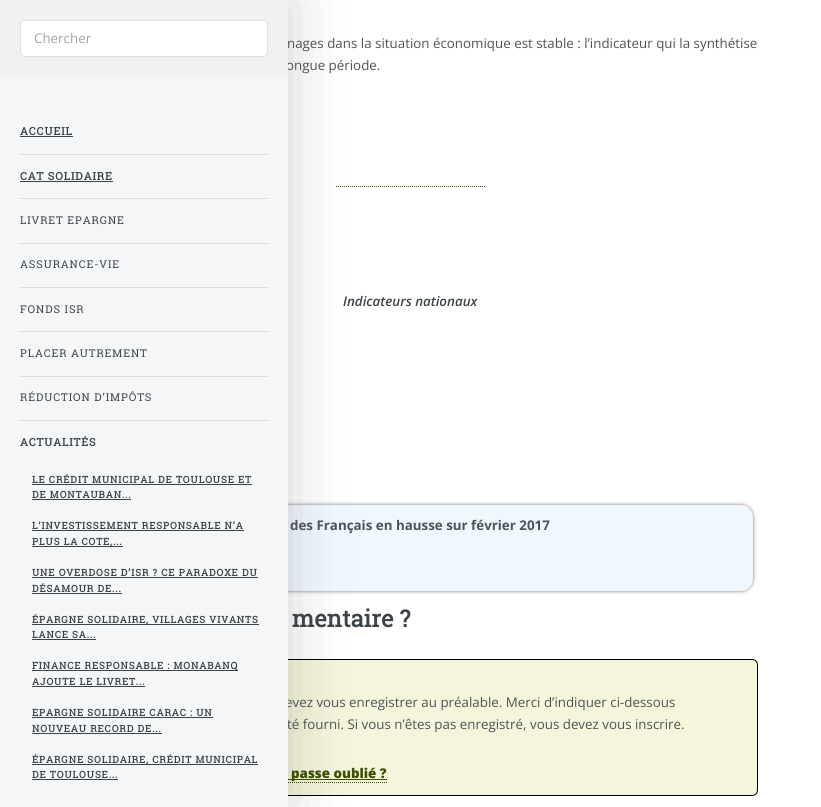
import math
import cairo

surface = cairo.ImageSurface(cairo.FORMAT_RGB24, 821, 807)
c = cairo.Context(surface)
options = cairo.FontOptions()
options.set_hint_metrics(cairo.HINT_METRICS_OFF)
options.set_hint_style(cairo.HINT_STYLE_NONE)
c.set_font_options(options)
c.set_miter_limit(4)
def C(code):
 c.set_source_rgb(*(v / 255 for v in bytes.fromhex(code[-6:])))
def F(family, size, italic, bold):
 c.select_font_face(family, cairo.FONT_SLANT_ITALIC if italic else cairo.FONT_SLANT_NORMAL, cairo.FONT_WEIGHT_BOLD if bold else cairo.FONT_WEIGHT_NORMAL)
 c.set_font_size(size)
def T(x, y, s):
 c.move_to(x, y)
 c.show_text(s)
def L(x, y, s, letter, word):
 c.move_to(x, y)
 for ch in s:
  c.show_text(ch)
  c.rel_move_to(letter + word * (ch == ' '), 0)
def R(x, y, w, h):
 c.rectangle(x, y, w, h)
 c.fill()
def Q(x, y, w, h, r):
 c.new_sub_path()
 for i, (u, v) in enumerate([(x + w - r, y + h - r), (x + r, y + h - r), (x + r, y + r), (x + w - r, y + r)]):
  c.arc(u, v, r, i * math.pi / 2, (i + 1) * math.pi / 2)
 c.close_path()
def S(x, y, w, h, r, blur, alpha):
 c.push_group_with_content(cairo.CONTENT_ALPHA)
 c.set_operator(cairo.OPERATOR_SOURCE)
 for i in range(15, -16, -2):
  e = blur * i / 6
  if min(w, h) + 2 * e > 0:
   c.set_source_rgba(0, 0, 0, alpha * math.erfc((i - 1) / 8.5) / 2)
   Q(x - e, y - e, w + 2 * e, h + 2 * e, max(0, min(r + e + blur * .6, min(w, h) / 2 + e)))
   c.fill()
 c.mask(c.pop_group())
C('ffffff')
c.paint()
c.new_path()
c.move_to(336,186.5)
c.line_to(486,186.5)
C('3b5003')
c.set_line_width(1)
c.set_dash([1,1])
c.stroke()
C('787878')
S(68,505,685,86,12,2,1)
C('f0f8ff')
Q(68,505,685,86,12)
c.fill()
C('f5f5dc')
Q(63.5,659.5,694,136,5.5)
c.fill_preserve()
C('000000')
c.set_dash([])
c.stroke()
c.new_path()
c.move_to(240,782.5)
c.line_to(387,782.5)
C('3b5003')
c.set_dash([1,1])
c.stroke()
R(288,779,99,1)
C('000000')
S(0,0,288,807,0,30,.18)
F('Open Sans',13.35,0,0)
C('4e5356')
T(285,707,'evez vous enregistrer au préalable. Merci d’indiquer ci-dessous')
T(287,729,'té fourni. Si vous n’êtes pas enregistré, vous devez vous inscrire.')
C('f5f6f7')
R(0,77,288,730)
C('4e5356')
T(287,48,'nages dans la situation économique est stable : l’indicateur qui la synthétise')
T(286,70,'ongue période.')
C('eff1f2')
R(0,0,288,77)
C('ffffff')
Q(20,20,248,37,5)
c.fill()
Q(20.5,20.5,247,36,4.5)
c.set_source_rgba(0.824,0.843,0.851,0.75)
c.set_dash([])
c.stroke()
C('9fa3a6')
T(34,43,'Chercher')
F('Roboto Slab',10.75,0,1)
C('3d4449')
L(20,135,'ACCUEIL',.9,0)
R(20,136,53,1)
C('dbdfe1')
R(20,154,248,1)
C('3d4449')
L(20,180,'CAT SOLIDAIRE',.9,0)
R(20,181,93,1)
C('dbdfe1')
R(20,198,248,1)
F('Roboto Slab',10.75,0,0)
C('3d4449')
L(20,224,'LIVRET EPARGNE',.9,0)
C('dbdfe1')
R(20,243,248,1)
C('3d4449')
L(20,268,'ASSURANCE-VIE',.9,0)
C('dbdfe1')
R(20,287,248,1)
C('3d4449')
L(20,313,'FONDS ISR',.9,0)
C('dbdfe1')
R(20,331,248,1)
C('3d4449')
L(20,357,'PLACER AUTREMENT',.9,0)
C('dbdfe1')
R(20,376,248,1)
C('3d4449')
L(20,401,'RÉDUCTION D’IMPÔTS',.9,0)
C('dbdfe1')
R(20,420,248,1)
F('Roboto Slab',10.75,0,1)
C('3d4449')
L(20,446,'ACTUALITÉS',.9,0)
F('Roboto Slab',9.6,0,1)
L(32,483,'LE CRÉDIT MUNICIPAL DE TOULOUSE ET',.9,0)
R(32,484,220,1)
L(32,498,'DE MONTAUBAN...',.9,0)
R(32,499,99,1)
L(32,529,'L’INVESTISSEMENT RESPONSABLE N’A',.9,0)
R(32,530,212,1)
R(32,546,91,1)
L(32,545,'PLUS LA COTE,...',.9,0)
L(32,576,'UNE OVERDOSE D’ISR ? CE PARADOXE DU',.9,0)
R(32,577,226,1)
L(32,592,'DÉSAMOUR DE...',.9,0)
R(32,593,90,1)
R(32,624,227,1)
L(32,623,'ÉPARGNE SOLIDAIRE, VILLAGES VIVANTS',.9,0)
L(32,638,'LANCE SA...',.9,0)
R(32,639,64,1)
R(32,670,206,1)
L(32,669,'FINANCE RESPONSABLE : MONABANQ',.9,0)
L(32,685,'AJOUTE LE LIVRET...',.9,0)
R(32,686,113,1)
L(32,716,'EPARGNE SOLIDAIRE CARAC : UN',.9,0)
R(32,717,181,1)
L(32,732,'NOUVEAU RECORD DE...',.9,0)
R(32,733,130,1)
R(32,764,226,1)
L(32,763,'ÉPARGNE SOLIDAIRE, CRÉDIT MUNICIPAL',.9,0)
L(32,778,'DE TOULOUSE...',.9,0)
R(32,779,86,1)
F('Open Sans SemiBold',13.35,1,0)
T(343,306,'Indicateurs nationaux')
F('Open Sans',13.35,0,1)
C('4e5356')
T(290,530,'des Français en hausse sur février 2017')
F('Roboto Slab',23.5,0,1)
C('3d4449')
T(292,627,'mentaire ?')
F('Open Sans ExtraBold',13.35,0,0)
C('3b5003')
T(291,778,'passe oublié ?')
surface.write_to_png('o.png')
